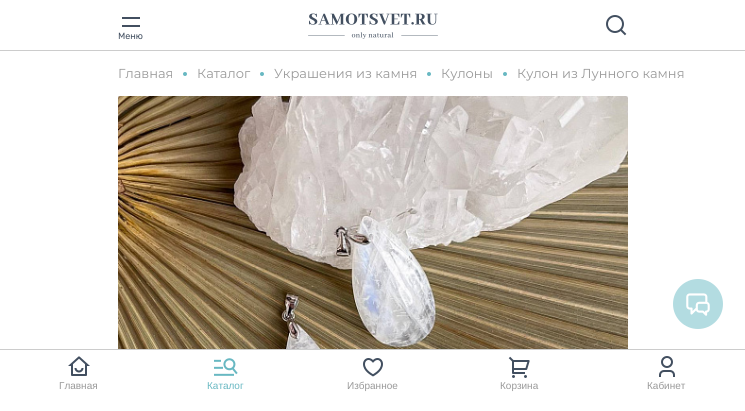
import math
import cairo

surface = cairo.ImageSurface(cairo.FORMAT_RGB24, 745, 411)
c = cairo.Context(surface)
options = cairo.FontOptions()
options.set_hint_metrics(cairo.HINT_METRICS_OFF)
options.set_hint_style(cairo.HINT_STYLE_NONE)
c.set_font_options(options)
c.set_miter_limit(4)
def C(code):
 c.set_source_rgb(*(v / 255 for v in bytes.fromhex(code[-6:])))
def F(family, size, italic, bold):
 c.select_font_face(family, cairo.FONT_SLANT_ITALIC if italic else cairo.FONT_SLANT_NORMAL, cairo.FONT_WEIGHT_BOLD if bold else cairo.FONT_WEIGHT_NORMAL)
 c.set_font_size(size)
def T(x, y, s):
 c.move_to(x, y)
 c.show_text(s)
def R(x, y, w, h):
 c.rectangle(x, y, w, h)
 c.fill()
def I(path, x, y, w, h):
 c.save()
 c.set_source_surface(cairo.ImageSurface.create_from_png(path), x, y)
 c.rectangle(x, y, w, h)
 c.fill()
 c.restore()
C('ffffff')
c.paint()
C('cccccc')
R(0,50,745,1)
I('1.png',118,17,25,23)
I('2.png',308,13,130,26)
I('3.png',606,15,21,21)
F('Montserrat',13,0,0)
C('999999')
T(118,78,'Главная')
C('68b8c2')
c.new_path()
c.arc(185,74,2,0,2 * math.pi)
c.fill()
C('999999')
T(197,78,'Каталог')
C('68b8c2')
c.new_path()
c.arc(262,74,2,0,2 * math.pi)
c.fill()
C('999999')
T(274,78,'Украшения из камня')
C('68b8c2')
c.new_path()
c.arc(429,74,2,0,2 * math.pi)
c.fill()
C('999999')
T(441,78,'Кулоны')
C('68b8c2')
c.new_path()
c.arc(505,74,2,0,2 * math.pi)
c.fill()
C('999999')
T(517,78,'Кулон из Лунного камня')
I('4.png',118,96,510,253)
I('5.png',673,279,50,50)
C('cccccc')
R(0,349,745,1)
I('6.png',68,356,22,20)
F('Liberation Sans',10,0,0)
C('999999')
T(59,389,'Главная')
I('7.png',214,358,24,18)
C('68b8c2')
T(207,389,'Каталог')
I('8.png',363,358,20,19)
C('999999')
T(347,389,'Избранное')
I('9.png',508,356,22,22)
T(500,389,'Корзина')
I('10.png',659,356,16,21)
T(647,389,'Кабинет')
surface.write_to_png('o.png')
